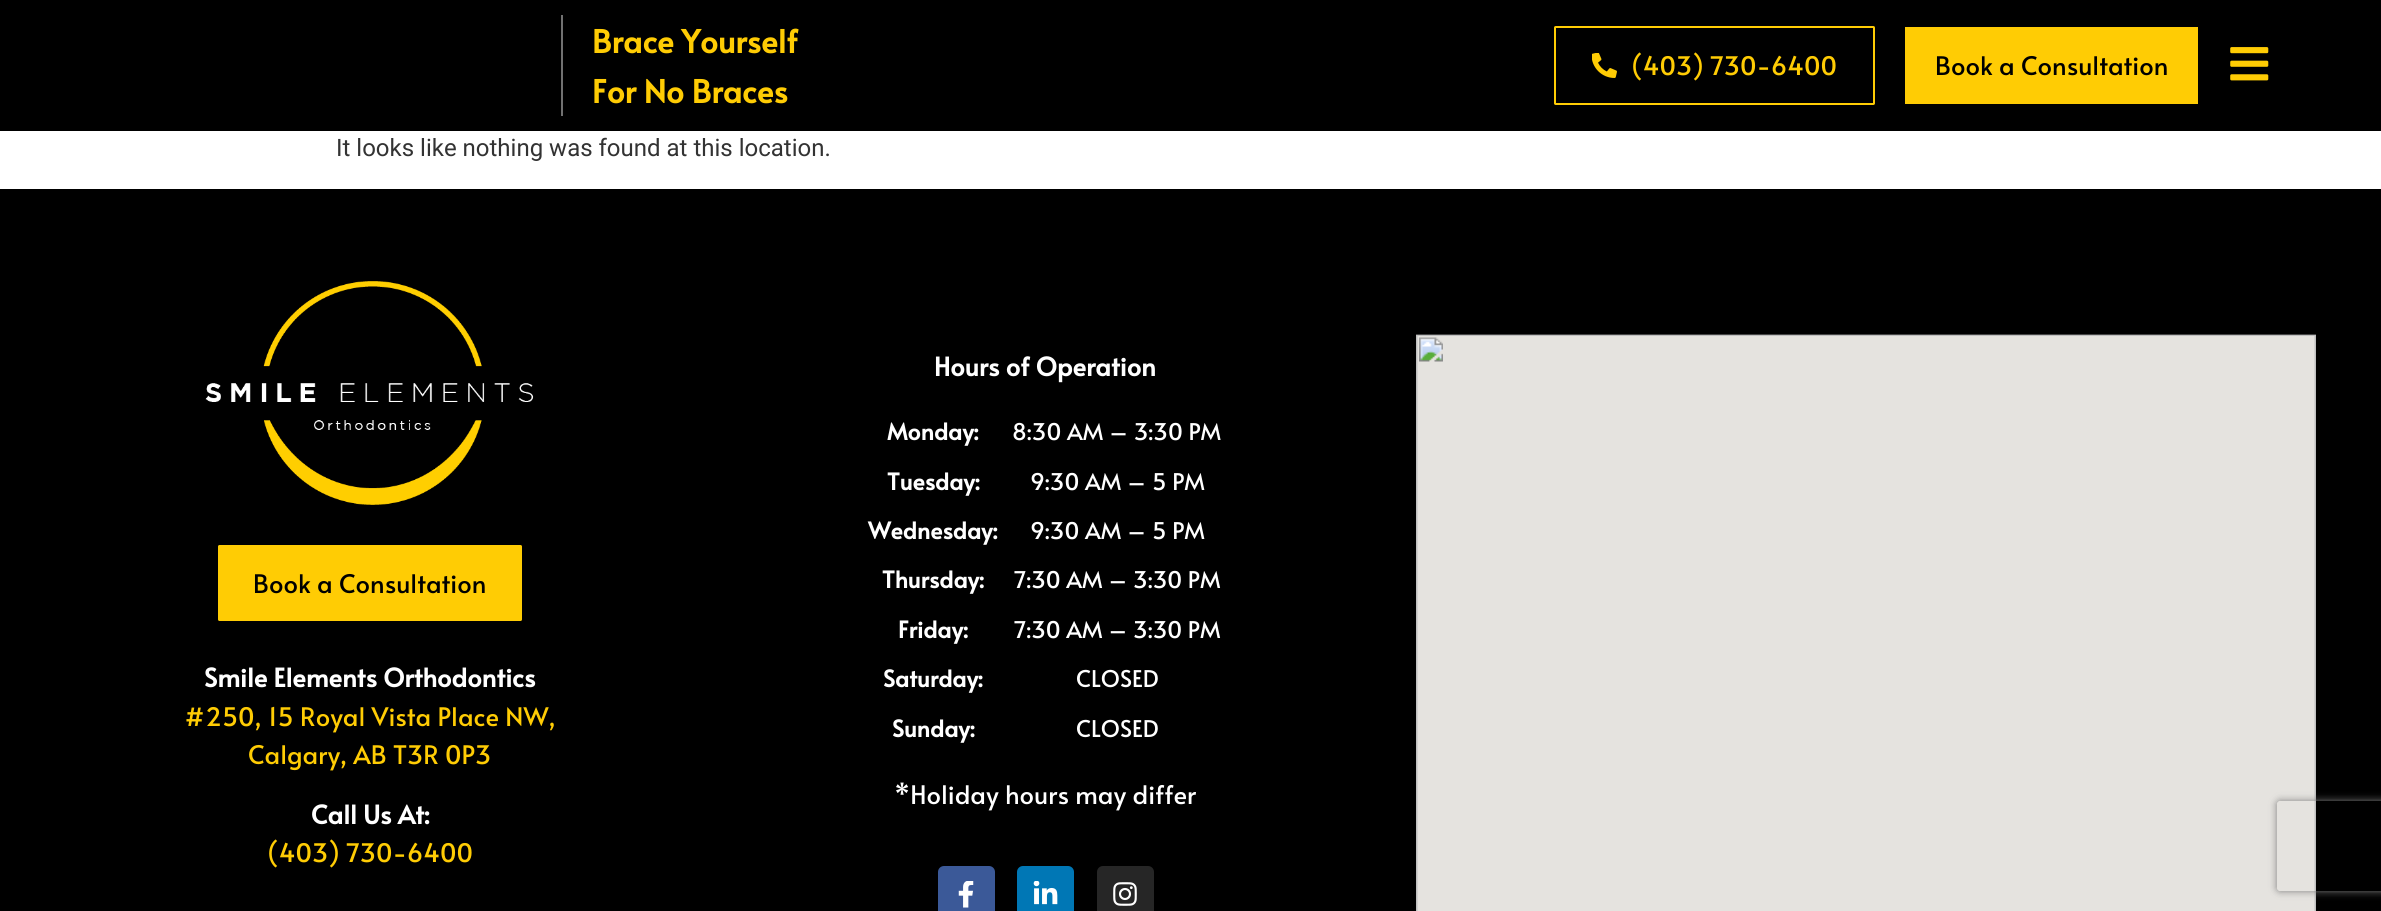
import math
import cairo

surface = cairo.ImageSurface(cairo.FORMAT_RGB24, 2381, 911)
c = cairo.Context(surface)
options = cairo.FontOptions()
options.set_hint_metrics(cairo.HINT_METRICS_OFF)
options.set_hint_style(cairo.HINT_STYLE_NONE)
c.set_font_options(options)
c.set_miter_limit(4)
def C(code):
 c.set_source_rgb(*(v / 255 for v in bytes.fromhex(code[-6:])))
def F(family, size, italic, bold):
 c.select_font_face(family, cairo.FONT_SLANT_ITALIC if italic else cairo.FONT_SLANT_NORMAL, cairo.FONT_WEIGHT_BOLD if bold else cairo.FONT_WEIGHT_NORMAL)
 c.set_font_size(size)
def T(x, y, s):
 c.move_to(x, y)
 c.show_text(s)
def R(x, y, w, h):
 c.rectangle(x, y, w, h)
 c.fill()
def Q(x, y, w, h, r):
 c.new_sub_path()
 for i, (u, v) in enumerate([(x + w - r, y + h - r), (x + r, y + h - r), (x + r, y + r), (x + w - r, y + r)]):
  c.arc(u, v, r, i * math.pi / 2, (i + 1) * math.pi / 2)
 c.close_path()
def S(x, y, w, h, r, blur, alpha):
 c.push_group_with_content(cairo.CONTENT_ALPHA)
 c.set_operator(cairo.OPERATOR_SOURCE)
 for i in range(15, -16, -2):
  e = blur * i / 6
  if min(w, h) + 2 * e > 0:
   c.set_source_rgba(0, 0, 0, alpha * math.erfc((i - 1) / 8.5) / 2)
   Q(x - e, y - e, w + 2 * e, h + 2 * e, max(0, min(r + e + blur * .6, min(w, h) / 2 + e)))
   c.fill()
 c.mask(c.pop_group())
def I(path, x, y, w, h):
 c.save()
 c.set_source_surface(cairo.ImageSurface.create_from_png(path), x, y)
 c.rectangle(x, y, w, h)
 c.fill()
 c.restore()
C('ffffff')
c.paint()
C('000000')
R(0,0,2381,131)
C('717171')
R(561,15,2,101)
F('Alata',31.5,0,1)
C('ffcc04')
T(592,53,'Brace Yourself')
T(592,103,'For No Braces')
Q(1555,27,319,77,.5)
c.stroke()
I('1.png',1592,53,25,25)
F('Alata',25.5,0,0)
T(1631,75,'(403) 730-6400')
R(1905,27,293,77)
C('000000')
T(1935,75,'Book a Consultation')
I('2.png',2230,47,39,34)
F('Roboto',24,0,0)
C('333333')
T(336,156,'It looks like nothing was found at this location.')
C('000000')
R(0,189,2381,722)
I('3.png',205,281,329,224)
C('ffcc04')
Q(218,545,304,76,1.5)
c.fill()
F('Alata',25.5,0,0)
C('000000')
T(253,593,'Book a Consultation')
F('Alata',25.5,0,1)
C('ffffff')
T(204,687,'Smile Elements Orthodontics')
F('Alata',25.5,0,0)
C('ffcc04')
T(184,726,'#250, 15 Royal Vista Place NW,')
T(248,764,'Calgary, AB T3R 0P3')
F('Alata',25.5,0,1)
C('ffffff')
T(311,824,'Call Us At:')
F('Alata',25.5,0,0)
C('ffcc04')
T(267,862,'(403) 730-6400')
F('Alata',25.5,0,1)
C('ffffff')
T(934,376,'Hours of Operation')
F('Alata',23,0,1)
T(887,440,'Monday:')
F('Alata',23,0,0)
T(1012,440,'8:30 AM – 3:30 PM')
F('Alata',23,0,1)
T(887,490,'Tuesday:')
F('Alata',23,0,0)
T(1030,490,'9:30 AM – 5 PM')
F('Alata',23,0,1)
T(868,539,'Wednesday:')
F('Alata',23,0,0)
T(1030,539,'9:30 AM – 5 PM')
F('Alata',23,0,1)
T(882,588,'Thursday:')
F('Alata',23,0,0)
T(1014,588,'7:30 AM – 3:30 PM')
F('Alata',23,0,1)
T(898,638,'Friday:')
F('Alata',23,0,0)
T(1014,638,'7:30 AM – 3:30 PM')
F('Alata',23,0,1)
T(883,687,'Saturday:')
F('Alata',23,0,0)
T(1076,687,'CLOSED')
F('Alata',23,0,1)
T(892,737,'Sunday:')
F('Alata',23,0,0)
T(1076,737,'CLOSED')
F('Alata',25.5,0,0)
T(894,804,'*Holiday hours may differ')
C('3b5998')
Q(938,866,57,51,6)
c.fill()
I('4.png',958,881,16,27)
C('0077b5')
Q(1017,866,57,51,6)
c.fill()
I('5.png',1033,881,25,24)
C('262626')
Q(1097,866,57,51,6)
c.fill()
I('6.png',1113,882,24,24)
I('7.png',1416,334,900,577)
c.save()
c.set_fill_rule(cairo.FILL_RULE_EVEN_ODD)
c.new_path()
c.move_to(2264,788)
c.line_to(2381,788)
c.line_to(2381,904)
c.line_to(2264,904)
c.close_path()
c.move_to(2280,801)
c.line_to(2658,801)
c.curve_to(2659.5,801,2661,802.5,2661,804)
c.line_to(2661,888)
c.curve_to(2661,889.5,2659.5,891,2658,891)
c.line_to(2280,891)
c.curve_to(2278.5,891,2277,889.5,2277,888)
c.line_to(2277,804)
c.curve_to(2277,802.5,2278.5,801,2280,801)
c.close_path()
c.clip()
C('808080')
S(2277,801,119,90,3,4,1)
c.restore()
surface.write_to_png('o.png')
